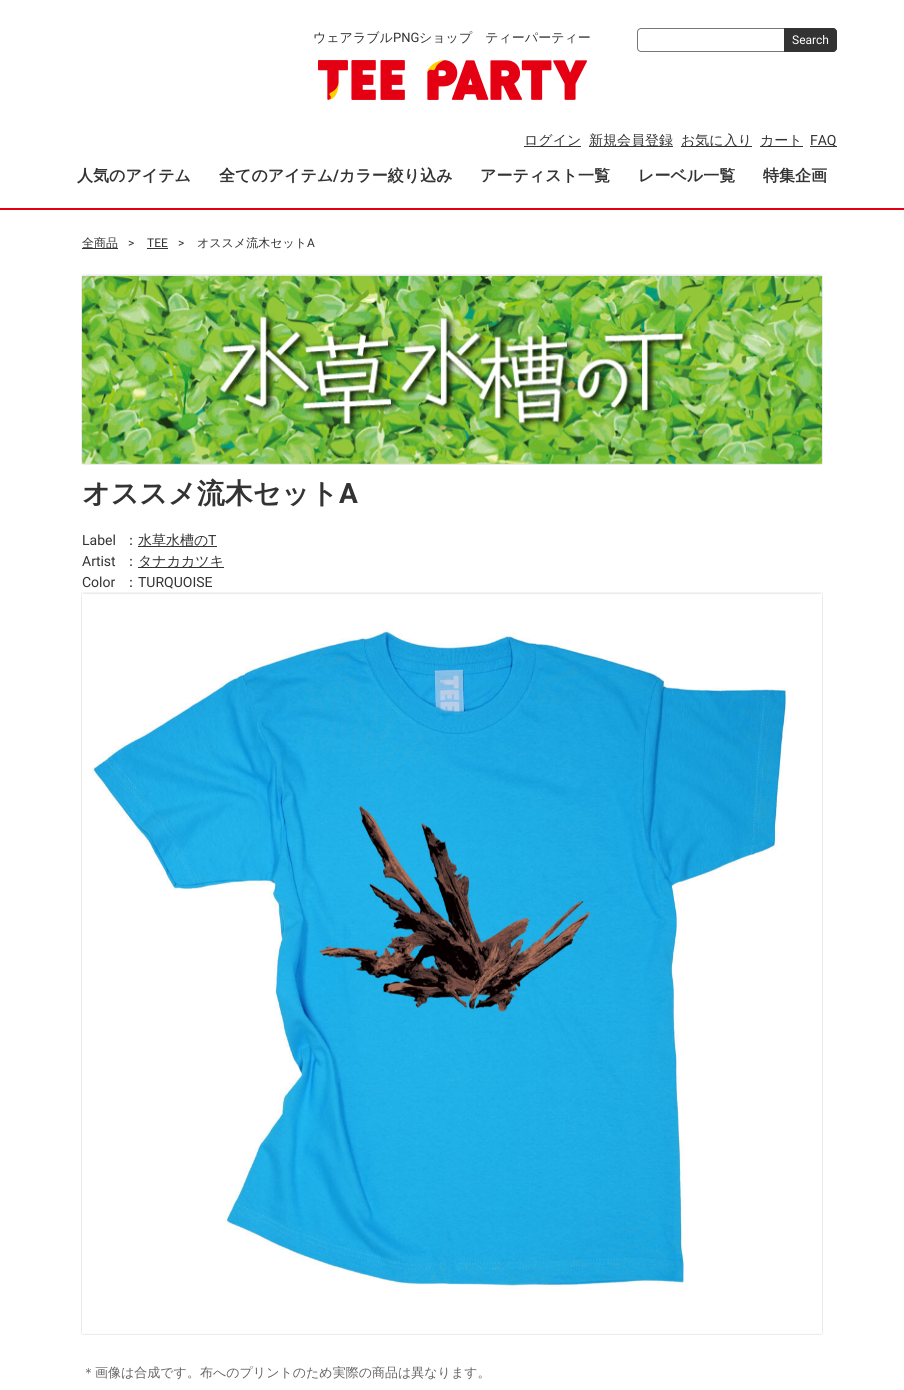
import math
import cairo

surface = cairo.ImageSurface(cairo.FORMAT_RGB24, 904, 1390)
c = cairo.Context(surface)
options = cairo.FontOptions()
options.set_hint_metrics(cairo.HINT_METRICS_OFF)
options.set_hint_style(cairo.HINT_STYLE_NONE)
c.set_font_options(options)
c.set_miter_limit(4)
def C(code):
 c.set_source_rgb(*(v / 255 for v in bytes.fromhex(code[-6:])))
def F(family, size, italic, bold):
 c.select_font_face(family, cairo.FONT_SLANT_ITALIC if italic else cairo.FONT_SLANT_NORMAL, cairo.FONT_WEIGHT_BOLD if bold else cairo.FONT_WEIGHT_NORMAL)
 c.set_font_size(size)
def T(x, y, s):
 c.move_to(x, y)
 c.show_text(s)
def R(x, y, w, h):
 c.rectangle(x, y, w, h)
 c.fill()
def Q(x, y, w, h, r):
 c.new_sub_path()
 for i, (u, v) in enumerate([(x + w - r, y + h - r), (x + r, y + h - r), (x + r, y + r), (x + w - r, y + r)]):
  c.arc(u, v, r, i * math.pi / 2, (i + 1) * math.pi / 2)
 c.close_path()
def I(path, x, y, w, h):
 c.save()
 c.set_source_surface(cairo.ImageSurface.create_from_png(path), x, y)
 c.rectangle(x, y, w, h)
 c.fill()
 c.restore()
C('ffffff')
c.paint()
C('e40012')
R(0,208,904,2)
F('WenQuanYi Zen Hei Medium',13,0,0)
C('333333')
T(313,42,'ウェアラブル')
F('Roboto',13,0,0)
T(393,42,'PNG')
F('WenQuanYi Zen Hei Medium',13,0,0)
T(419,42,'ショップ　ティーパーティー')
I('1.png',318,60,269,40)
Q(637.5,28.5,199,23,3.5)
C('777777')
c.set_line_width(1)
c.stroke()
C('333333')
c.new_path()
c.move_to(784,28)
c.line_to(833,28)
c.curve_to(835,28,837,30,837,32)
c.line_to(837,48)
c.curve_to(837,50,835,52,833,52)
c.line_to(784,52)
c.close_path()
c.fill()
F('Roboto',12,0,0)
C('ffffff')
T(792,44,'Search')
C('333333')
R(524,146,57,1)
F('WenQuanYi Zen Hei Medium',14,0,0)
T(524,145,'ログイン')
R(589,146,84,1)
T(589,145,'新規会員登録')
R(681,146,71,1)
T(681,145,'お気に入り')
R(760,146,43,1)
T(760,145,'カート')
R(810,146,27,1)
F('Roboto',14,0,0)
T(810,145,'FAQ')
F('WenQuanYi Zen Hei',16,0,1)
T(77,181,'人気のアイテム')
T(219,181,'全てのアイテム')
F('Roboto',16,0,1)
T(333,181,'/')
F('WenQuanYi Zen Hei',16,0,1)
T(339,181,'カラー絞り込み')
T(480,181,'アーティスト一覧')
T(638,181,'レーベル一覧')
T(763,181,'特集企画')
R(82,248,36,1)
F('WenQuanYi Zen Hei Medium',12,0,0)
T(82,247,'全商品')
F('Roboto',12,0,0)
T(128,247,'>')
T(147,247,'TEE')
R(147,248,21,1)
T(178,247,'>')
F('WenQuanYi Zen Hei Medium',12,0,0)
T(197,247,'オススメ流木セット')
F('Roboto',12,0,0)
T(307,247,'A')
I('2.png',81,274,742,191)
F('WenQuanYi Zen Hei',28,0,1)
T(82,503,'オススメ流木セット')
F('Roboto',28,0,1)
T(339,503,'A')
F('Roboto',14,0,0)
T(82,545,'Label')
F('WenQuanYi Zen Hei Medium',14,0,0)
T(124,545,'：')
R(138,546,79,1)
T(138,545,'水草水槽の')
F('Roboto',14,0,0)
T(208,545,'T')
T(82,566,'Artist')
F('WenQuanYi Zen Hei Medium',14,0,0)
T(124,566,'：')
R(138,567,86,1)
T(138,566,'タナカカツキ')
F('Roboto',14,0,0)
T(82,587,'Color')
F('WenQuanYi Zen Hei Medium',14,0,0)
T(124,587,'：')
F('Roboto',14,0,0)
T(138,587,'TURQUOISE')
I('3.png',81,592,742,743)
F('WenQuanYi Zen Hei Medium',13,0,0)
C('666666')
T(82,1377,'＊画像は合成です。布へのプリントのため実際の商品は異なります。')
surface.write_to_png('o.png')
